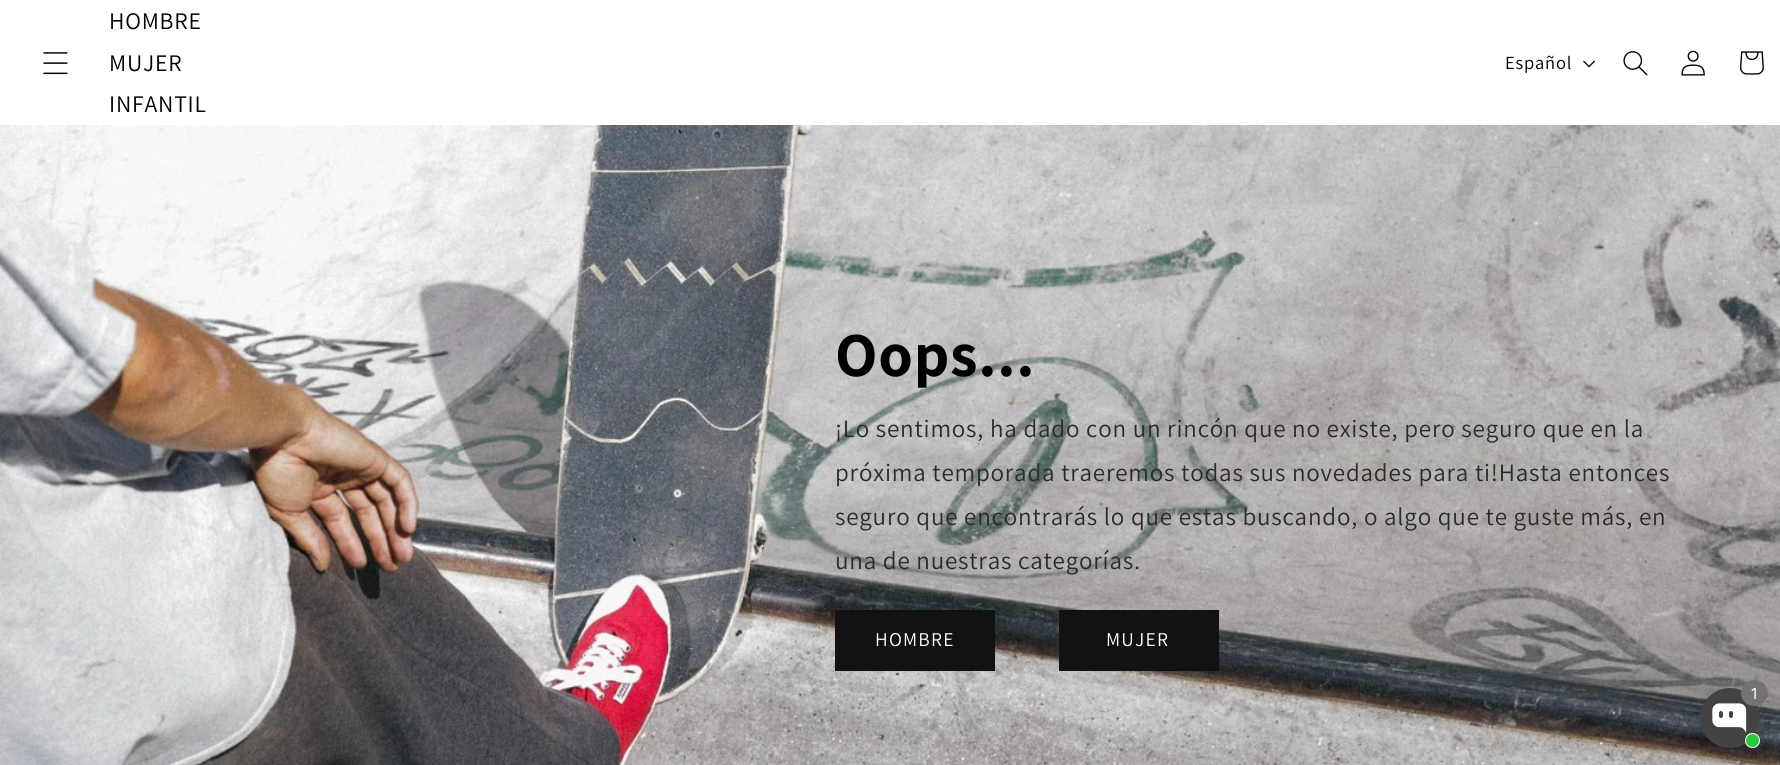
import math
import cairo

surface = cairo.ImageSurface(cairo.FORMAT_RGB24, 1780, 765)
c = cairo.Context(surface)
options = cairo.FontOptions()
options.set_hint_metrics(cairo.HINT_METRICS_OFF)
options.set_hint_style(cairo.HINT_STYLE_NONE)
c.set_font_options(options)
c.set_miter_limit(4)
def C(code):
 c.set_source_rgb(*(v / 255 for v in bytes.fromhex(code[-6:])))
def F(family, size, italic, bold):
 c.select_font_face(family, cairo.FONT_SLANT_ITALIC if italic else cairo.FONT_SLANT_NORMAL, cairo.FONT_WEIGHT_BOLD if bold else cairo.FONT_WEIGHT_NORMAL)
 c.set_font_size(size)
def L(x, y, s, letter, word):
 c.move_to(x, y)
 for ch in s:
  c.show_text(ch)
  c.rel_move_to(letter + word * (ch == ' '), 0)
def R(x, y, w, h):
 c.rectangle(x, y, w, h)
 c.fill()
def Q(x, y, w, h, r):
 c.new_sub_path()
 for i, (u, v) in enumerate([(x + w - r, y + h - r), (x + r, y + h - r), (x + r, y + r), (x + w - r, y + r)]):
  c.arc(u, v, r, i * math.pi / 2, (i + 1) * math.pi / 2)
 c.close_path()
def S(x, y, w, h, r, blur, alpha):
 c.push_group_with_content(cairo.CONTENT_ALPHA)
 c.set_operator(cairo.OPERATOR_SOURCE)
 for i in range(15, -16, -2):
  e = blur * i / 6
  if min(w, h) + 2 * e > 0:
   c.set_source_rgba(0, 0, 0, alpha * math.erfc((i - 1) / 8.5) / 2)
   Q(x - e, y - e, w + 2 * e, h + 2 * e, max(0, min(r + e + blur * .6, min(w, h) / 2 + e)))
   c.fill()
 c.mask(c.pop_group())
def I(path, x, y, w, h):
 c.save()
 c.set_source_surface(cairo.ImageSurface.create_from_png(path), x, y)
 c.rectangle(x, y, w, h)
 c.fill()
 c.restore()
C('ffffff')
c.paint()
I('1.png',43,52,25,23)
F('Assistant',23.75,0,0)
C('000000')
L(109,29,'HOMBRE',.8,0)
L(109,71,'MUJER',.8,0)
L(109,112,'INFANTIL',.8,0)
F('Assistant',18.5,0,0)
L(1505,69,'Español',.8,0)
I('2.png',1583,60,12,8)
I('3.png',1623,51,25,25)
I('4.png',1681,50,24,26)
I('5.png',1740,51,24,24)
I('6.png',0,125,1780,640)
F('Assistant',62.5,0,1)
L(835,376,'Oops...',.75,0)
F('Assistant',25,0,0)
C('2c2b2b')
L(835,437,'¡Lo sentimos, ha dado con un rincón que no existe, pero seguro que en la',.8,0)
L(835,481,'próxima temporada traeremos todas sus novedades para ti!Hasta entonces',.8,0)
L(835,525,'seguro que encontrarás lo que estas buscando, o algo que te guste más, en',.8,0)
L(835,569,'una de nuestras categorías.',.8,0)
C('121212')
R(835,610,160,61)
F('Assistant',19.5,0,0)
C('ffffff')
L(875,646,'HOMBRE',1.25,0)
C('121212')
R(1059,610,160,61)
C('ffffff')
L(1106,646,'MUJER',1.25,0)
C('000000')
S(1700,695,60,60,30,7.5,.25)
C('434343')
c.arc(1730,718,30,0,2 * math.pi)
c.fill()
I('7.png',1712,703,35,30)
C('27ca40')
c.arc(1752.5,740.5,7,0,2 * math.pi)
c.fill_preserve()
C('ffffff')
c.set_line_width(1)
c.stroke()
C('737373')
Q(1741,680,27,26,13)
c.fill()
F('Inter',15,0,0)
C('ffffff')
L(1751,699,'1',.8,0)
surface.write_to_png('o.png')
